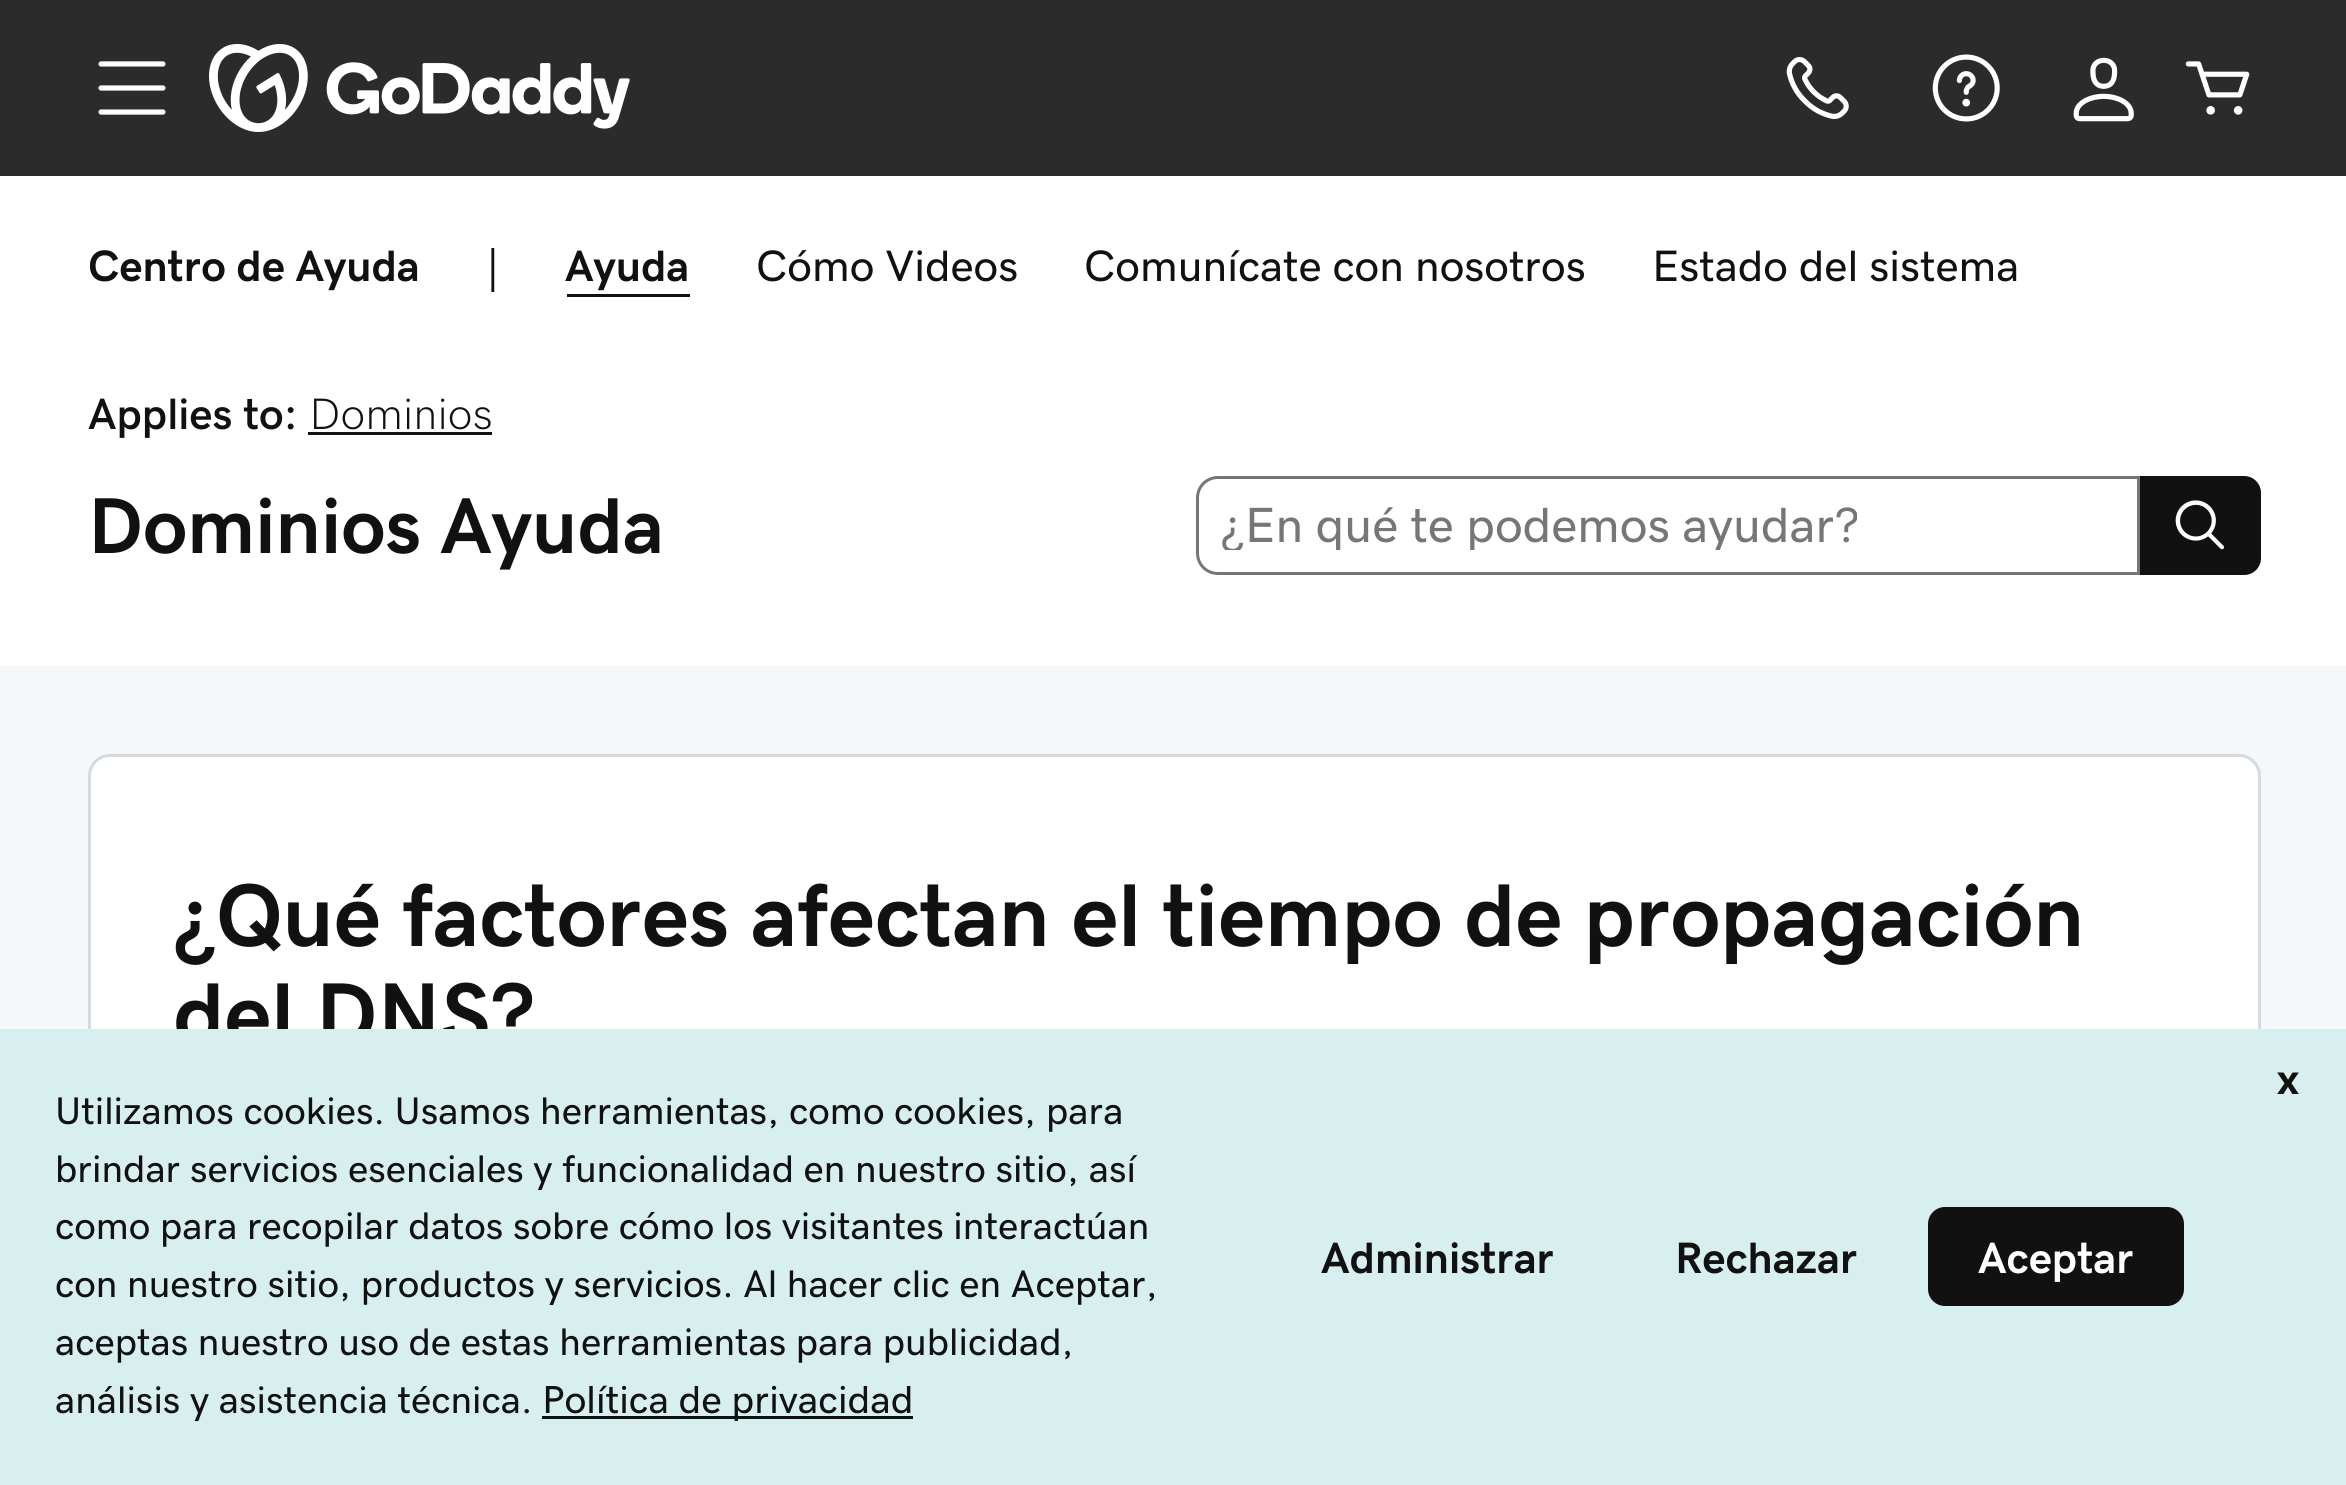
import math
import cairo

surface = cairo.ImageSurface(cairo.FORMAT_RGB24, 2346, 1485)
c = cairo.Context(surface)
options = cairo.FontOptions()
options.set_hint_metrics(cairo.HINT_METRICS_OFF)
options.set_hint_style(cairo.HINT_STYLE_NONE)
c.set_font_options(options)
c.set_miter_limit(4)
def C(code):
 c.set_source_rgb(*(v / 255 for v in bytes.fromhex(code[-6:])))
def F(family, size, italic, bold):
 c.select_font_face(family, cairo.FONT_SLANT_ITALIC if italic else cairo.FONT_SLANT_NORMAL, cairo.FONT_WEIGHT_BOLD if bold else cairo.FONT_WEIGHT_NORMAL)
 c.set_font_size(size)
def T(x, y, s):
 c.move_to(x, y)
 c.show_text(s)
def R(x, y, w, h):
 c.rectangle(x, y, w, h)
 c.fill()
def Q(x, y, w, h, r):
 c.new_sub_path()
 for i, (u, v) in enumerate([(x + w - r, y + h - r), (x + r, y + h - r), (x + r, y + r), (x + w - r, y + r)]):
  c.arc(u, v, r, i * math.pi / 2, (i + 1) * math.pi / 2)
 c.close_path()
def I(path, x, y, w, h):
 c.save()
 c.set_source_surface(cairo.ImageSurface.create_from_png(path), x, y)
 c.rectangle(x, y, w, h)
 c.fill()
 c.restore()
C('ffffff')
c.paint()
C('2b2b2b')
R(0,0,2346,176)
I('1.png',98,61,68,54)
I('2.png',209,44,421,88)
I('3.png',1786,57,63,62)
I('4.png',1932,54,68,68)
I('5.png',2073,57,61,65)
I('6.png',2185,61,65,54)
F('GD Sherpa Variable',44,0,1)
C('111111')
T(88,281,'Centro de Ayuda')
F('GD Sherpa Variable',44,0,0)
T(486,281,'|')
F('GD Sherpa Variable',44,0,1)
T(565,281,'Ayuda')
R(567,294,123,3)
F('GD Sherpa Variable',44,0,0)
T(756,281,'Cómo Videos')
T(1084,281,'Comunícate con nosotros')
T(1652,281,'Estado del sistema')
F('GD Sherpa Variable SemiBold',44,0,0)
T(88,429,'Applies to:')
F('GD Sherpa Variable ExtraLight',44,0,0)
T(309,429,'Dominios')
R(308,432,184,3)
F('GD Sherpa Variable',79.25,0,1)
T(88,553,'Dominios Ayuda')
c.new_path()
c.move_to(1218,477.5)
c.line_to(2138.5,477.5)
c.line_to(2138.5,573.5)
c.line_to(1218,573.5)
c.curve_to(1206.5,573.5,1197.5,564.5,1197.5,553)
c.line_to(1197.5,498)
c.curve_to(1197.5,486.5,1206.5,477.5,1218,477.5)
c.close_path()
C('767676')
c.set_line_width(3)
c.stroke()
c.save()
c.rectangle(1221,501,894,49)
c.clip()
F('GD Sherpa Variable',49.5,0,0)
T(1220,542,'¿En qué te podemos ayudar?')
c.restore()
C('111111')
c.new_path()
c.move_to(2140,476)
c.line_to(2244,476)
c.curve_to(2253.5,476,2261,483.5,2261,493)
c.line_to(2261,558)
c.curve_to(2261,567.5,2253.5,575,2244,575)
c.line_to(2140,575)
c.close_path()
c.fill()
I('7.png',2175,500,49,50)
C('f5f7f8')
R(0,666,2346,363)
C('ffffff')
Q(89.5,755.5,2170,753,20.5)
c.fill_preserve()
C('d4dbe0')
c.stroke()
F('GD Sherpa Variable ExtraBold',89.2,0,0)
C('111111')
T(173,946,'¿Qué factores afectan el tiempo de propagación')
T(173,1045,'del DNS?')
C('d8efef')
R(0,1029,2346,456)
F('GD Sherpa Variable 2',44,0,1)
C('111111')
T(2277,1094,'x')
F('GD Sherpa Variable',38.5,0,0)
T(55,1124,'Utilizamos cookies. Usamos herramientas, como cookies, para')
T(55,1182,'brindar servicios esenciales y funcionalidad en nuestro sitio, así')
T(55,1239,'como para recopilar datos sobre cómo los visitantes interactúan')
T(55,1297,'con nuestro sitio, productos y servicios. Al hacer clic en Aceptar,')
T(55,1355,'aceptas nuestro uso de estas herramientas para publicidad,')
T(55,1413,'análisis y asistencia técnica.')
R(542,1416,371,3)
F('GD Sherpa Variable',39.1,0,0)
T(542,1413,'Política de privacidad')
F('GD Sherpa Variable 2',44,0,1)
T(1321,1273,'Administrar')
T(1675,1273,'Rechazar')
Q(1928,1207,256,99,17)
c.fill()
C('ffffff')
T(1978,1273,'Aceptar')
surface.write_to_png('o.png')
